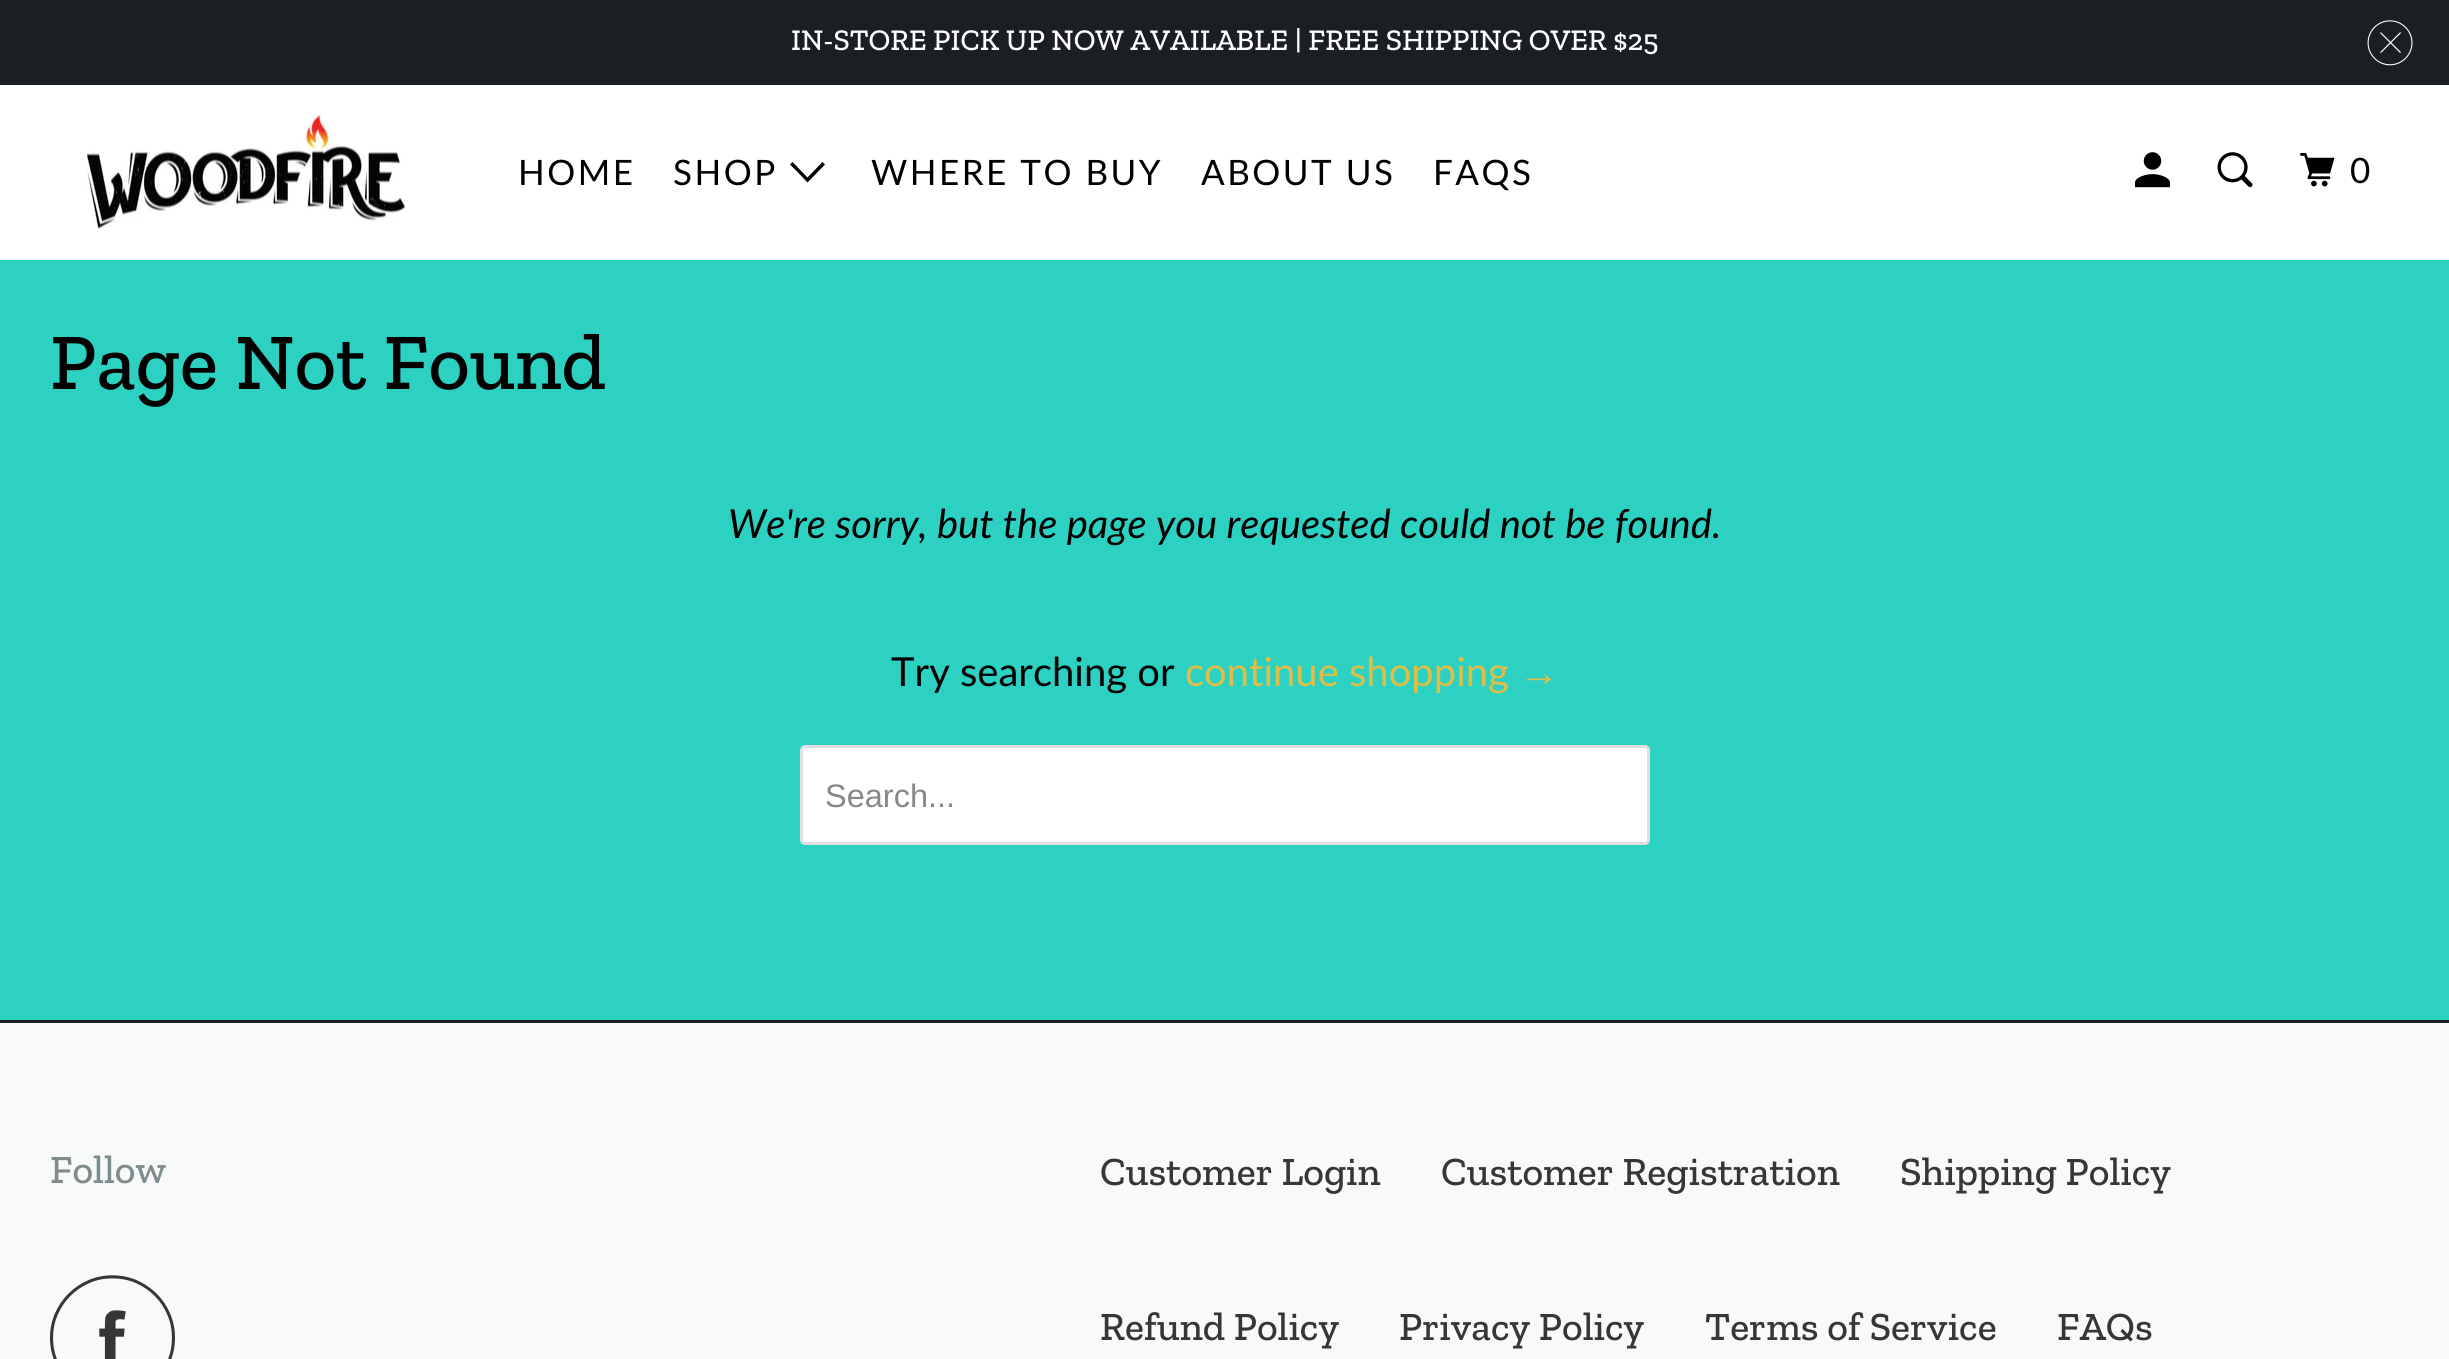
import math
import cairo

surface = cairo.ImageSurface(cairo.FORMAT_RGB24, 2449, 1359)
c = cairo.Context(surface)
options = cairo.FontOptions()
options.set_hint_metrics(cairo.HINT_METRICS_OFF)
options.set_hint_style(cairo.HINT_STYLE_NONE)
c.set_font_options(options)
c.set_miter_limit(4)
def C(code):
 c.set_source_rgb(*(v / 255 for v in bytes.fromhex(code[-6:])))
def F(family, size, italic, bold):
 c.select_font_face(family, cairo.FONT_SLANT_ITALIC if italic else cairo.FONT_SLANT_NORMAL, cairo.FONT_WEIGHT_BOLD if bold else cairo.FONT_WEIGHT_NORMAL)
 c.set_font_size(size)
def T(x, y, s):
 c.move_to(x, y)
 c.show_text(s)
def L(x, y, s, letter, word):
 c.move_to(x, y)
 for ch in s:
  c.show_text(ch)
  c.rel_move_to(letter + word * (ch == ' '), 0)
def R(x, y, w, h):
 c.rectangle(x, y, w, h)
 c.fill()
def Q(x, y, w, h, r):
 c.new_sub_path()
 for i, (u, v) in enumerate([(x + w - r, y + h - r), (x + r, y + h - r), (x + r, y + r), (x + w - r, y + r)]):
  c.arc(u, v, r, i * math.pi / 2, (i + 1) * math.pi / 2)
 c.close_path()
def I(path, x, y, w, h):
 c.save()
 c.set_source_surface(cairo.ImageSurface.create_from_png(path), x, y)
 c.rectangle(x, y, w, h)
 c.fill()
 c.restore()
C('2dd1c2')
c.paint()
C('1b1f23')
R(0,0,2449,85)
F('Zilla Slab Medium',30,0,0)
C('ffffff')
T(791,50,'IN-STORE PICK UP NOW AVAILABLE | FREE SHIPPING OVER $25')
I('1.png',2367,20,46,46)
R(0,85,2449,175)
I('2.png',86,114,319,115)
F('Lato',35,0,0)
C('000000')
L(518,185,'HOME',2.5,0)
L(673,185,'SHOP',2.5,0)
c.new_path()
c.move_to(799,173.5)
c.line_to(790,164.5)
c.line_to(792.5,162)
c.line_to(807.5,177.5)
c.line_to(822.5,162)
c.line_to(825,164.5)
c.line_to(807.5,182.5)
c.close_path()
c.fill()
L(871,185,'WHERE TO BUY',2.5,0)
L(1201,185,'ABOUT US',2.5,0)
L(1433,185,'FAQS',2.5,0)
I('3.png',2135,152,35,36)
I('4.png',2217,152,36,36)
I('5.png',2300,152,35,35)
L(2350,183,'0',2.5,0)
F('Zilla Slab Medium',80,0,0)
T(50,389,'Page Not Found')
F('Lato',40,1,0)
T(728,538,'We\'re sorry, but the page you requested could not be found.')
F('Lato',40,0,0)
T(891,686,'Try searching or')
C('e0be45')
T(1185,686,'continue shopping')
F('Liberation Sans',40,0,0)
T(1519,686,'→')
C('ffffff')
Q(801.5,746.5,847,97,3.5)
c.fill_preserve()
C('dfdfdf')
c.set_line_width(3)
c.stroke()
F('Liberation Sans',32.5,0,0)
C('888888')
T(825,807,'Search...')
C('f8fafa')
R(0,1023,2449,336)
C('1b1f23')
R(0,1020,2449,3)
F('Zilla Slab Medium',40,0,0)
C('7f8c8d')
T(50,1183,'Follow')
I('6.png',50,1275,125,84)
C('363636')
T(1100,1185,'Customer Login')
T(1441,1185,'Customer Registration')
T(1900,1185,'Shipping Policy')
T(1100,1340,'Refund Policy')
T(1399,1340,'Privacy Policy')
T(1705,1340,'Terms of Service')
T(2057,1340,'FAQs')
surface.write_to_png('o.png')
